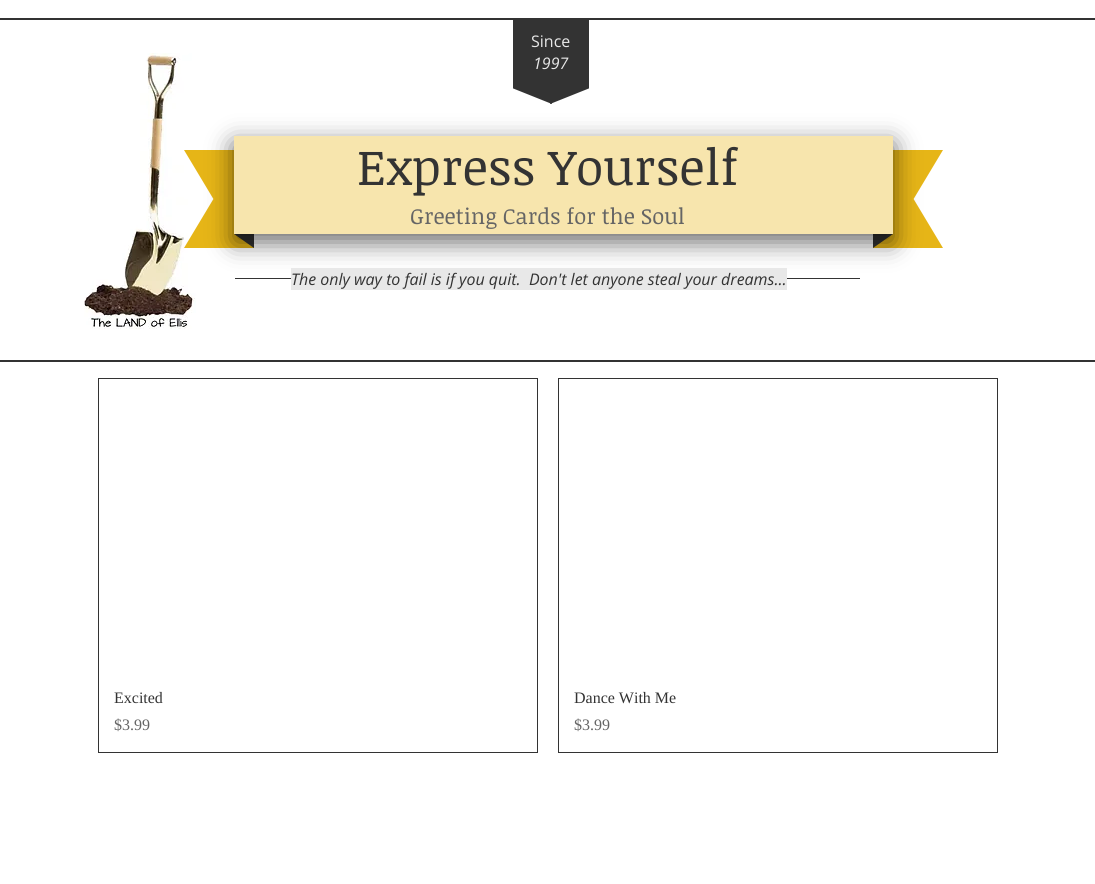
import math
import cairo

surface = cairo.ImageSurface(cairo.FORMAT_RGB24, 1095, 884)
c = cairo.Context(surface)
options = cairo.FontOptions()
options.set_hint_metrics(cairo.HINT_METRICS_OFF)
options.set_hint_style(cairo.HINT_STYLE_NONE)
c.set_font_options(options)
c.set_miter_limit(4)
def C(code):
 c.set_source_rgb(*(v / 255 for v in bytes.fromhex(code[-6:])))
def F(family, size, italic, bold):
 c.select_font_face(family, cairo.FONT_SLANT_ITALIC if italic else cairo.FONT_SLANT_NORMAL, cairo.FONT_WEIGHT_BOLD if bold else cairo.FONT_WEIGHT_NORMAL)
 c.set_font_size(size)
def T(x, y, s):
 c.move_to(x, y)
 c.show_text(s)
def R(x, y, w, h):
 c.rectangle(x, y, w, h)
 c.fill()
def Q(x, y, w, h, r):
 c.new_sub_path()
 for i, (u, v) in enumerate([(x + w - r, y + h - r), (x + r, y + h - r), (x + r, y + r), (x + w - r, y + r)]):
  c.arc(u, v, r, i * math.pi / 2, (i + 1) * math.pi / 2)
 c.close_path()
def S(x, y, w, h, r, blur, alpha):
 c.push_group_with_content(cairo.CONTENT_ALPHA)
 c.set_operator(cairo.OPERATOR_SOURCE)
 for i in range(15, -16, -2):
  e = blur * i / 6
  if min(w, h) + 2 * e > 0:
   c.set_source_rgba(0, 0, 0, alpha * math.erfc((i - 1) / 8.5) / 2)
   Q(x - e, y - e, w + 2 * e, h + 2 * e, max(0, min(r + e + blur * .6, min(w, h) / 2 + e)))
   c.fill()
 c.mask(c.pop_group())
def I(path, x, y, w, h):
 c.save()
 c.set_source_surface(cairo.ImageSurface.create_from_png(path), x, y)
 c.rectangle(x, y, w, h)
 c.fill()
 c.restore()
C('ffffff')
c.paint()
C('333333')
R(0,18,1095,2)
R(0,360,1095,2)
I('1.png',84,53,112,276)
c.save()
c.rectangle(513,20,76,85)
c.clip()
c.new_path()
c.move_to(550,104)
c.line_to(550,-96)
c.line_to(1050,-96)
c.close_path()
c.fill()
c.new_path()
c.move_to(552,-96)
c.line_to(552,104)
c.line_to(52,-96)
c.close_path()
c.fill()
c.restore()
F('Open Sans',16,0,0)
C('e8e8e8')
T(531,47,'Since')
F('Open Sans',16,1,0)
T(533,69,'1997')
c.save()
c.rectangle(184,150,759,49)
c.clip()
C('e6b517')
c.new_path()
c.move_to(184,150)
c.line_to(254,150)
c.line_to(254,250)
c.line_to(244,250)
c.close_path()
c.fill()
c.new_path()
c.move_to(873,150)
c.line_to(943,150)
c.line_to(883,250)
c.line_to(873,250)
c.close_path()
c.fill()
c.restore()
c.save()
c.rectangle(184,199,759,49)
c.clip()
C('e6b517')
c.new_path()
c.move_to(254,248)
c.line_to(184,248)
c.line_to(244,148)
c.line_to(254,148)
c.close_path()
c.fill()
c.new_path()
c.move_to(943,248)
c.line_to(873,248)
c.line_to(873,148)
c.line_to(883,148)
c.close_path()
c.fill()
c.restore()
C('333333')
c.new_path()
c.move_to(254,234)
c.line_to(254,248)
c.line_to(234,234)
c.close_path()
c.fill()
c.new_path()
c.move_to(873,248)
c.line_to(873,234)
c.line_to(893,234)
c.close_path()
c.fill()
R(235,278,625,1)
C('000000')
S(234,144,659,98,0,12.5,.6)
C('f7e5ad')
R(234,136,659,98)
F('Noticia Text',50,0,0)
C('333333')
T(357,185,'Express Yourself')
F('Noticia Text',22,0,0)
C('656565')
T(410,224,'Greeting Cards for the Soul')
C('e8e8e8')
R(291,268,496,22)
F('Open Sans',16,1,0)
C('333333')
T(291,285,'The only way to fail is if you quit.  Don\'t let anyone steal your dreams...')
c.rectangle(98.5,378.5,439,374)
c.set_line_width(1)
c.stroke()
F('Liberation Serif',16,0,0)
T(114,703,'Excited')
C('656565')
T(114,730,'$3.99')
c.rectangle(558.5,378.5,439,374)
C('333333')
c.stroke()
T(574,703,'Dance With Me')
C('656565')
T(574,730,'$3.99')
surface.write_to_png('o.png')
